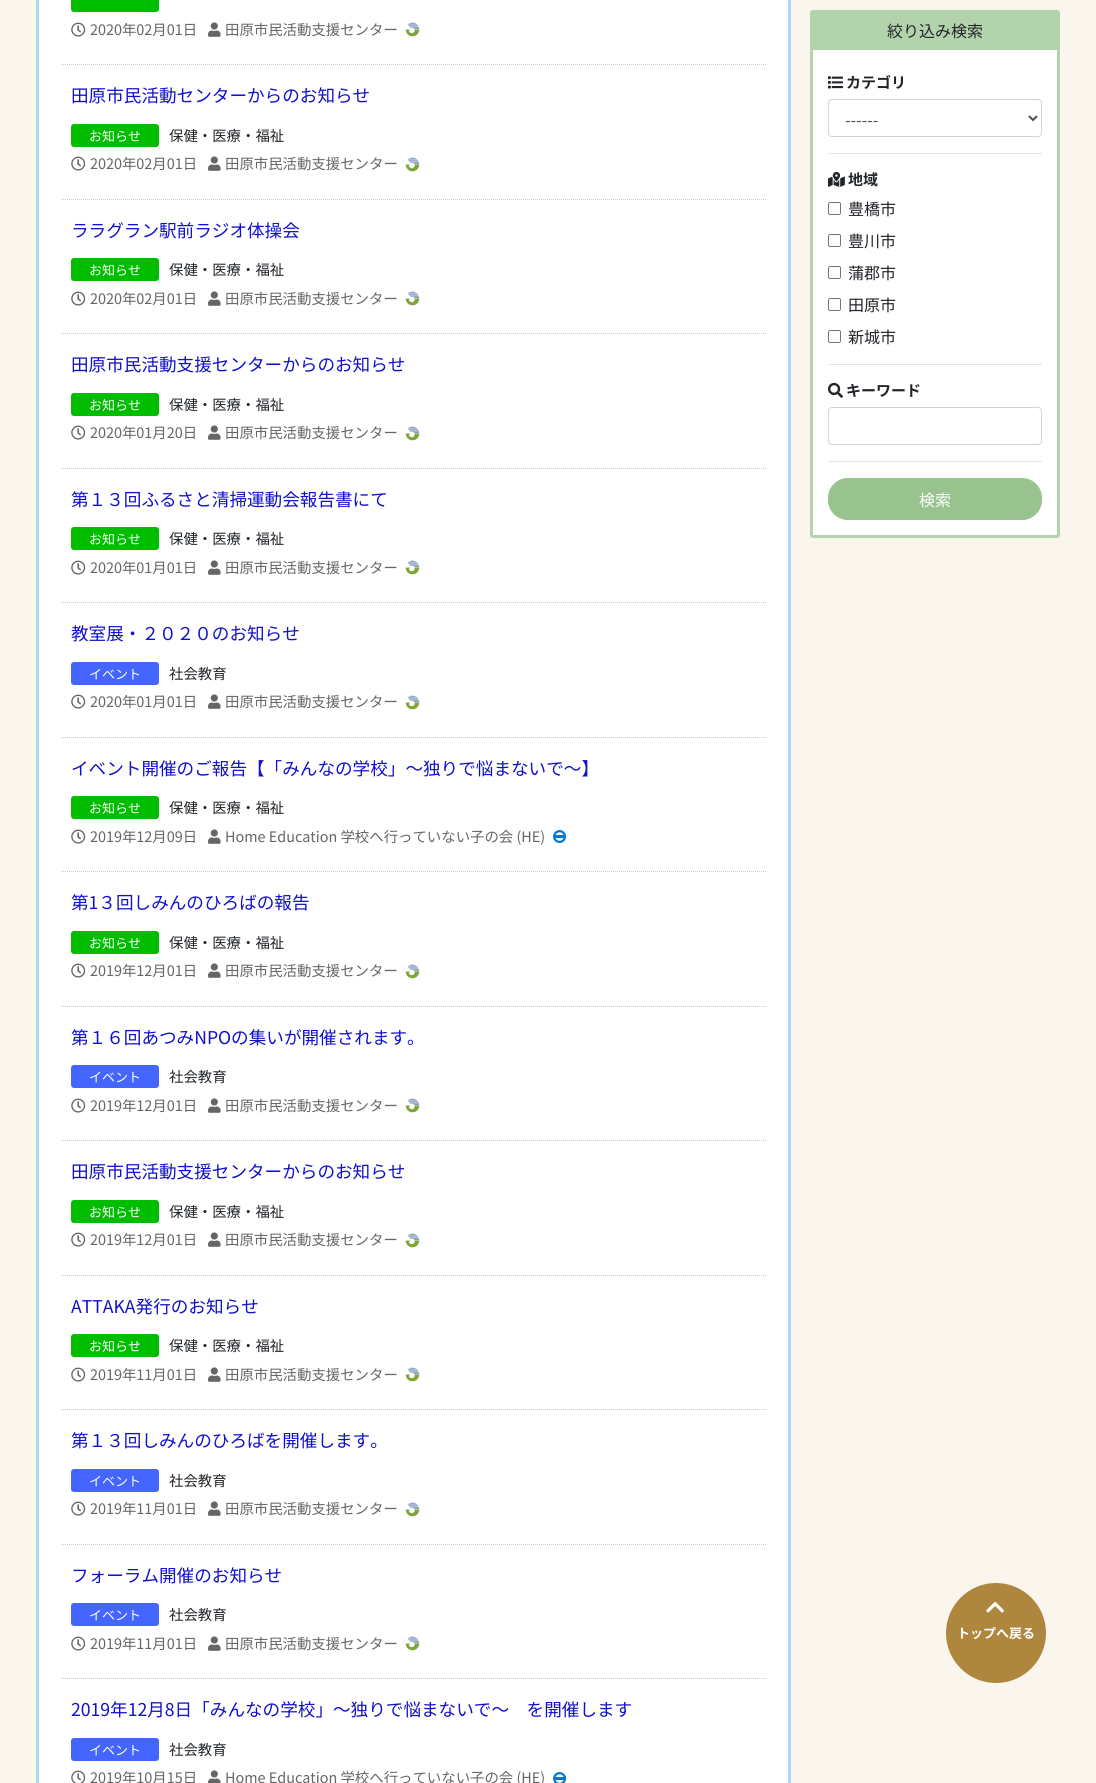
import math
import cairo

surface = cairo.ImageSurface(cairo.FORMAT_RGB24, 1096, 1783)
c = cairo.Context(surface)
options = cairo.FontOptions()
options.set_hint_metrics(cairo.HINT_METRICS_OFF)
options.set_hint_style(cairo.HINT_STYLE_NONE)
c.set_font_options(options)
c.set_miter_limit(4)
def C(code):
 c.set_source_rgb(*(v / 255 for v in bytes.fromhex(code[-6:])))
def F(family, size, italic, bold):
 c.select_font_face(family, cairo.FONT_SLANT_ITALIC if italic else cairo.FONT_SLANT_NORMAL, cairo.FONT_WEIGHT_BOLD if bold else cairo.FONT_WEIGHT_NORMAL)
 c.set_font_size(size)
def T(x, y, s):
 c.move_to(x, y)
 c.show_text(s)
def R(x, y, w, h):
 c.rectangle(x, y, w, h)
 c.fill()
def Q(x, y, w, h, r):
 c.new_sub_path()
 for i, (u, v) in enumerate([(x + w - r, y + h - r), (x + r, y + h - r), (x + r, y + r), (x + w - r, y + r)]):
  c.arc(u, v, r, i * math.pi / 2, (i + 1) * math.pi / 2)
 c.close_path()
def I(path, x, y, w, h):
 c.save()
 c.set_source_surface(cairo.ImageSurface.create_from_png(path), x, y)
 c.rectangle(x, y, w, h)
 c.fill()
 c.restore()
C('faf5ed')
c.paint()
c.rectangle(37.5,-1.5,752,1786)
C('afd7f4')
c.set_line_width(3)
c.stroke()
C('ffffff')
R(39,0,749,1783)
C('00bd00')
Q(71,-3,88,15,3)
c.fill()
I('1.png',71,22,15,15)
F('Noto Sans JP',14.4,0,0)
C('666666')
T(90,35,'2020年02月01日')
I('2.png',208,22,13,15)
T(225,35,'田原市民活動支援センター')
I('3.png',405,22,15,15)
c.new_path()
c.move_to(61,64.5)
c.line_to(766,64.5)
C('cccccc')
c.set_line_width(1)
c.set_dash([1,1])
c.stroke()
F('Noto Sans JP',17.6,0,0)
C('1111cc')
T(71,102,'田原市民活動センターからのお知らせ')
C('00bd00')
Q(71,124,88,23,3)
c.fill()
F('Noto Sans JP',13,0,0)
C('ffffff')
T(89,141,'お知らせ')
F('Noto Sans JP',14.4,0,0)
C('212529')
T(169,141,'保健・医療・福祉')
I('1.png',71,156,15,15)
C('666666')
T(90,169,'2020年02月01日')
I('2.png',208,156,13,15)
T(225,169,'田原市民活動支援センター')
I('3.png',405,157,15,15)
c.new_path()
c.move_to(61,199.5)
c.line_to(766,199.5)
C('cccccc')
c.stroke()
F('Noto Sans JP',17.6,0,0)
C('1111cc')
T(71,237,'ララグラン駅前ラジオ体操会')
C('00bd00')
Q(71,258,88,23,3)
c.fill()
F('Noto Sans JP',13,0,0)
C('ffffff')
T(89,275,'お知らせ')
F('Noto Sans JP',14.4,0,0)
C('212529')
T(169,275,'保健・医療・福祉')
I('1.png',71,291,15,15)
C('666666')
T(90,304,'2020年02月01日')
I('2.png',208,291,13,15)
T(225,304,'田原市民活動支援センター')
I('3.png',405,291,15,15)
c.new_path()
c.move_to(61,333.5)
c.line_to(766,333.5)
C('cccccc')
c.stroke()
F('Noto Sans JP',17.6,0,0)
C('1111cc')
T(71,371,'田原市民活動支援センターからのお知らせ')
C('00bd00')
Q(71,393,88,23,3)
c.fill()
F('Noto Sans JP',13,0,0)
C('ffffff')
T(89,410,'お知らせ')
F('Noto Sans JP',14.4,0,0)
C('212529')
T(169,410,'保健・医療・福祉')
I('1.png',71,425,15,15)
C('666666')
T(90,438,'2020年01月20日')
I('2.png',208,425,13,15)
T(225,438,'田原市民活動支援センター')
I('3.png',405,426,15,15)
c.new_path()
c.move_to(61,468.5)
c.line_to(766,468.5)
C('cccccc')
c.stroke()
F('Noto Sans JP',17.6,0,0)
C('1111cc')
T(71,506,'第１３回ふるさと清掃運動会報告書にて')
C('00bd00')
Q(71,527,88,23,3)
c.fill()
F('Noto Sans JP',13,0,0)
C('ffffff')
T(89,544,'お知らせ')
F('Noto Sans JP',14.4,0,0)
C('212529')
T(169,544,'保健・医療・福祉')
I('1.png',71,560,15,15)
C('666666')
T(90,573,'2020年01月01日')
I('2.png',208,560,13,15)
T(225,573,'田原市民活動支援センター')
I('3.png',405,560,15,15)
c.new_path()
c.move_to(61,602.5)
c.line_to(766,602.5)
C('cccccc')
c.stroke()
F('Noto Sans JP',17.6,0,0)
C('1111cc')
T(71,640,'教室展・２０２０のお知らせ')
C('4465ff')
Q(71,662,88,23,3)
c.fill()
F('Noto Sans JP',13,0,0)
C('ffffff')
T(89,679,'イベント')
F('Noto Sans JP',14.4,0,0)
C('212529')
T(169,679,'社会教育')
I('1.png',71,694,15,15)
C('666666')
T(90,707,'2020年01月01日')
I('2.png',208,694,13,15)
T(225,707,'田原市民活動支援センター')
I('3.png',405,695,15,15)
c.new_path()
c.move_to(61,737.5)
c.line_to(766,737.5)
C('cccccc')
c.stroke()
F('Noto Sans JP',17.6,0,0)
C('1111cc')
T(71,775,'イベント開催のご報告【「みんなの学校」～独りで悩まないで～】')
C('00bd00')
Q(71,796,88,23,3)
c.fill()
F('Noto Sans JP',13,0,0)
C('ffffff')
T(89,813,'お知らせ')
F('Noto Sans JP',14.4,0,0)
C('212529')
T(169,813,'保健・医療・福祉')
I('1.png',71,829,15,15)
C('666666')
T(90,842,'2019年12月09日')
I('2.png',208,829,13,15)
T(225,842,'Home Education 学校へ行っていない子の会 (HE)')
I('4.png',553,830,13,13)
c.new_path()
c.move_to(61,871.5)
c.line_to(766,871.5)
C('cccccc')
c.stroke()
F('Noto Sans JP',17.6,0,0)
C('1111cc')
T(71,909,'第1３回しみんのひろばの報告')
C('00bd00')
Q(71,931,88,23,3)
c.fill()
F('Noto Sans JP',13,0,0)
C('ffffff')
T(89,948,'お知らせ')
F('Noto Sans JP',14.4,0,0)
C('212529')
T(169,948,'保健・医療・福祉')
I('1.png',71,963,15,15)
C('666666')
T(90,976,'2019年12月01日')
I('2.png',208,963,13,15)
T(225,976,'田原市民活動支援センター')
I('3.png',405,964,15,15)
c.new_path()
c.move_to(61,1006.5)
c.line_to(766,1006.5)
C('cccccc')
c.stroke()
F('Noto Sans JP',17.6,0,0)
C('1111cc')
T(71,1044,'第１６回あつみNPOの集いが開催されます。')
C('4465ff')
Q(71,1065,88,23,3)
c.fill()
F('Noto Sans JP',13,0,0)
C('ffffff')
T(89,1082,'イベント')
F('Noto Sans JP',14.4,0,0)
C('212529')
T(169,1082,'社会教育')
I('1.png',71,1098,15,15)
C('666666')
T(90,1111,'2019年12月01日')
I('2.png',208,1098,13,15)
T(225,1111,'田原市民活動支援センター')
I('3.png',405,1098,15,15)
c.new_path()
c.move_to(61,1140.5)
c.line_to(766,1140.5)
C('cccccc')
c.stroke()
F('Noto Sans JP',17.6,0,0)
C('1111cc')
T(71,1178,'田原市民活動支援センターからのお知らせ')
C('00bd00')
Q(71,1200,88,23,3)
c.fill()
F('Noto Sans JP',13,0,0)
C('ffffff')
T(89,1217,'お知らせ')
F('Noto Sans JP',14.4,0,0)
C('212529')
T(169,1217,'保健・医療・福祉')
I('1.png',71,1232,15,15)
C('666666')
T(90,1245,'2019年12月01日')
I('2.png',208,1232,13,15)
T(225,1245,'田原市民活動支援センター')
I('3.png',405,1233,15,15)
c.new_path()
c.move_to(61,1275.5)
c.line_to(766,1275.5)
C('cccccc')
c.stroke()
F('Noto Sans JP',17.6,0,0)
C('1111cc')
T(71,1313,'ATTAKA発行のお知らせ')
C('00bd00')
Q(71,1334,88,23,3)
c.fill()
F('Noto Sans JP',13,0,0)
C('ffffff')
T(89,1351,'お知らせ')
F('Noto Sans JP',14.4,0,0)
C('212529')
T(169,1351,'保健・医療・福祉')
I('1.png',71,1367,15,15)
C('666666')
T(90,1380,'2019年11月01日')
I('2.png',208,1367,13,15)
T(225,1380,'田原市民活動支援センター')
I('3.png',405,1367,15,15)
c.new_path()
c.move_to(61,1409.5)
c.line_to(766,1409.5)
C('cccccc')
c.stroke()
F('Noto Sans JP',17.6,0,0)
C('1111cc')
T(71,1447,'第１３回しみんのひろばを開催します。')
C('4465ff')
Q(71,1469,88,23,3)
c.fill()
F('Noto Sans JP',13,0,0)
C('ffffff')
T(89,1486,'イベント')
F('Noto Sans JP',14.4,0,0)
C('212529')
T(169,1486,'社会教育')
I('1.png',71,1501,15,15)
C('666666')
T(90,1514,'2019年11月01日')
I('2.png',208,1501,13,15)
T(225,1514,'田原市民活動支援センター')
I('3.png',405,1502,15,15)
c.new_path()
c.move_to(61,1544.5)
c.line_to(766,1544.5)
C('cccccc')
c.stroke()
F('Noto Sans JP',17.6,0,0)
C('1111cc')
T(71,1582,'フォーラム開催のお知らせ')
C('4465ff')
Q(71,1603,88,23,3)
c.fill()
F('Noto Sans JP',13,0,0)
C('ffffff')
T(89,1620,'イベント')
F('Noto Sans JP',14.4,0,0)
C('212529')
T(169,1620,'社会教育')
I('1.png',71,1636,15,15)
C('666666')
T(90,1649,'2019年11月01日')
I('2.png',208,1636,13,15)
T(225,1649,'田原市民活動支援センター')
I('3.png',405,1636,15,15)
c.new_path()
c.move_to(61,1678.5)
c.line_to(766,1678.5)
C('cccccc')
c.stroke()
F('Noto Sans JP',17.6,0,0)
C('1111cc')
T(71,1716,'2019年12月8日「みんなの学校」～独りで悩まないで～　を開催します')
C('4465ff')
Q(71,1738,88,23,3)
c.fill()
F('Noto Sans JP',13,0,0)
C('ffffff')
T(89,1755,'イベント')
F('Noto Sans JP',14.4,0,0)
C('212529')
T(169,1755,'社会教育')
I('5.png',71,1770,15,13)
C('666666')
T(90,1783,'2019年10月15日')
I('6.png',208,1770,13,13)
T(225,1783,'Home Education 学校へ行っていない子の会 (HE)')
I('7.png',553,1772,13,11)
C('ffffff')
Q(811.5,11.5,247,525,1.5)
c.fill_preserve()
C('b3d3ac')
c.set_line_width(3)
c.set_dash([])
c.stroke()
R(813,13,244,37)
F('Noto Sans JP',16,0,0)
C('212529')
T(887,37,'絞り込み検索')
I('8.png',828,76,15,13)
F('Noto Sans JP',15,0,1)
T(846,88,'カテゴリ')
Q(828.5,99.5,213,37,3.5)
C('ced4da')
c.set_line_width(1)
c.stroke()
c.new_path()
c.move_to(1029,116)
c.line_to(1033,120)
c.line_to(1037,116)
C('495057')
c.set_line_width(2)
c.stroke()
F('Noto Sans JP',16,0,0)
T(845,126,'------')
C('e6e6e6')
R(828,153,214,1)
I('9.png',828,171,17,16)
F('Noto Sans JP',15,0,1)
C('212529')
T(848,185,'地域')
Q(828.5,202.5,12,12,1.5)
C('767676')
c.set_line_width(1)
c.stroke()
F('Noto Sans JP',16,0,0)
C('212529')
T(848,215,'豊橋市')
Q(828.5,234.5,12,12,1.5)
C('767676')
c.stroke()
C('212529')
T(848,247,'豊川市')
Q(828.5,266.5,12,12,1.5)
C('767676')
c.stroke()
C('212529')
T(848,279,'蒲郡市')
Q(828.5,298.5,12,12,1.5)
C('767676')
c.stroke()
C('212529')
T(848,311,'田原市')
Q(828.5,330.5,12,12,1.5)
C('767676')
c.stroke()
C('212529')
T(848,343,'新城市')
C('e6e6e6')
R(828,364,214,1)
I('10.png',828,382,15,16)
F('Noto Sans JP',15,0,1)
C('212529')
T(846,396,'キーワード')
Q(828.5,407.5,213,37,3.5)
C('ced4da')
c.stroke()
C('e6e6e6')
R(828,461,214,1)
C('98c38e')
Q(828.5,478.5,213,41,19.5)
c.fill_preserve()
c.stroke()
F('Noto Sans JP',16,0,0)
C('ffffff')
T(919,506,'検索')
C('ae863e')
c.new_path()
c.arc(996,1633,50,0,2 * math.pi)
c.fill()
I('11.png',986,1601,18,12)
F('Noto Sans JP',13,0,1)
C('ffffff')
T(957,1638,'トップへ戻る')
surface.write_to_png('o.png')
